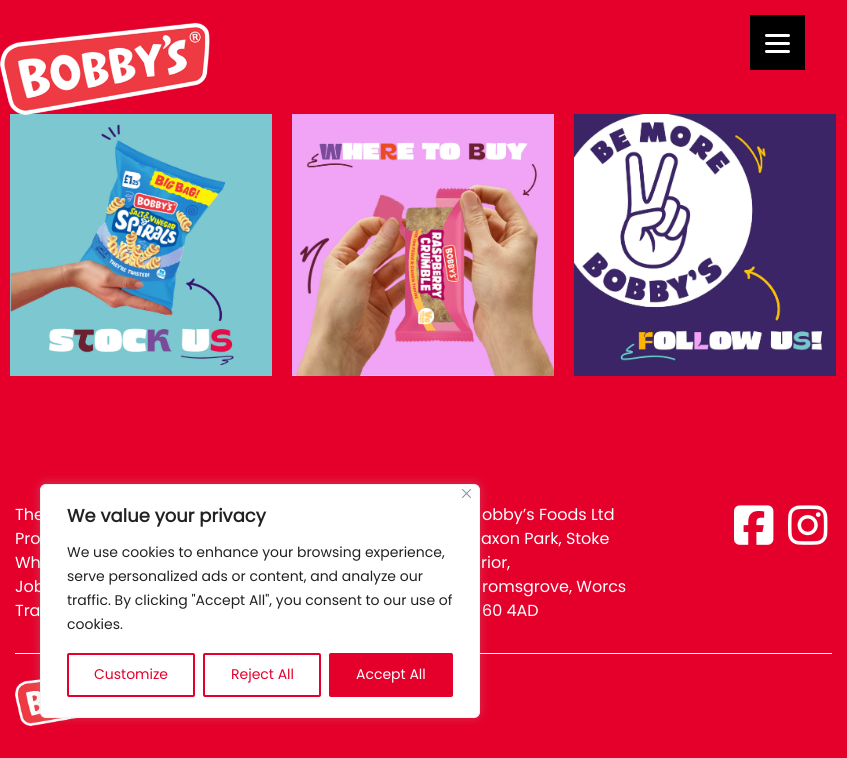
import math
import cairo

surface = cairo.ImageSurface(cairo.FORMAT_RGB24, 847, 758)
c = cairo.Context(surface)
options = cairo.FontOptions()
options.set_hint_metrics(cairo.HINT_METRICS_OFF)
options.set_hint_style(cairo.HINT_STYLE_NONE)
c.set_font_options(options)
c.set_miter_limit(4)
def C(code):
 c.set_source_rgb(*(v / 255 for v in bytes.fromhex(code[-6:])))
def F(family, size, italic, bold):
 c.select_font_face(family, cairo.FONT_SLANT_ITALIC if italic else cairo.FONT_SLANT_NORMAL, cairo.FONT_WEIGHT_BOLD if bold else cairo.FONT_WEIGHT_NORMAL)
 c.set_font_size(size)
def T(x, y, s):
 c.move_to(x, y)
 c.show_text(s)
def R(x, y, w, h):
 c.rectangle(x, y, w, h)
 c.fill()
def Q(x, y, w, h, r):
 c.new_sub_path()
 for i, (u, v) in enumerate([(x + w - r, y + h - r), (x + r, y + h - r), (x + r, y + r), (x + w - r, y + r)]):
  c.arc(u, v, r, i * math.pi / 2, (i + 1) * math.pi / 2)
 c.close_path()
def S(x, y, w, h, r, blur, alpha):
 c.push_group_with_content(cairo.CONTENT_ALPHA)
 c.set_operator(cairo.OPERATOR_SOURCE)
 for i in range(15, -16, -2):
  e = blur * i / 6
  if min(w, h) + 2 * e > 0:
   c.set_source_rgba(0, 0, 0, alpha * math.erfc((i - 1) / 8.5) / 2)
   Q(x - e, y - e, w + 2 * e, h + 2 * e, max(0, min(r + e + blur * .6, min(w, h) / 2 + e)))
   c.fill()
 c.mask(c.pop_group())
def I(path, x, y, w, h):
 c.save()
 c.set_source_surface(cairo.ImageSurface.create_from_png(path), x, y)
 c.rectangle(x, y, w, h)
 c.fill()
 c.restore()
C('e4002b')
c.paint()
C('000000')
R(750,15,55,55)
C('ffffff')
Q(765,42,25,3,1.5)
c.fill()
Q(765,34,25,3,1.5)
c.fill()
Q(765,50,25,3,1.5)
c.fill()
I('2.png',10,114,262,262)
I('1.png',0,22,210,93)
I('3.png',292,114,262,262)
I('4.png',574,114,262,262)
F('Poppins',16,0,0)
T(15,520,'The')
T(15,544,'Pro')
T(15,568,'Wh')
T(15,592,'Job')
T(15,616,'Tra')
T(482,520,'obby’s Foods Ltd')
T(481,544,'axon Park, Stoke')
T(481,568,'rior,')
T(482,592,'romsgrove, Worcs')
T(482,616,'60 4AD')
I('5.png',734,505,40,40)
I('6.png',788,505,40,40)
R(15,653,817,1)
I('7.png',15,679,63,47)
C('acabab')
S(40,483,440,234,6,5,.3)
C('ffffff')
Q(40.5,484.5,439,233,5.5)
c.fill_preserve()
C('f4f4f4')
c.set_line_width(1)
c.stroke()
I('8.png',462,489,9,9)
F('Poppins',18,0,1)
C('212121')
T(67,522,'We value your privacy')
F('Poppins',14,0,0)
T(67,557,'We use cookies to enhance your browsing experience,')
T(67,581,'serve personalized ads or content, and analyze our')
T(67,605,'traffic. By clicking "Accept All", you consent to our use of')
T(67,629,'cookies.')
Q(68,654,126,42,1)
C('e4002b')
c.set_line_width(2)
c.stroke()
T(94,679,'Customize')
Q(204,654,116,42,1)
c.stroke()
T(231,679,'Reject All')
Q(330,654,122,42,1)
c.fill_preserve()
c.stroke()
C('ffffff')
T(356,679,'Accept All')
surface.write_to_png('o.png')
